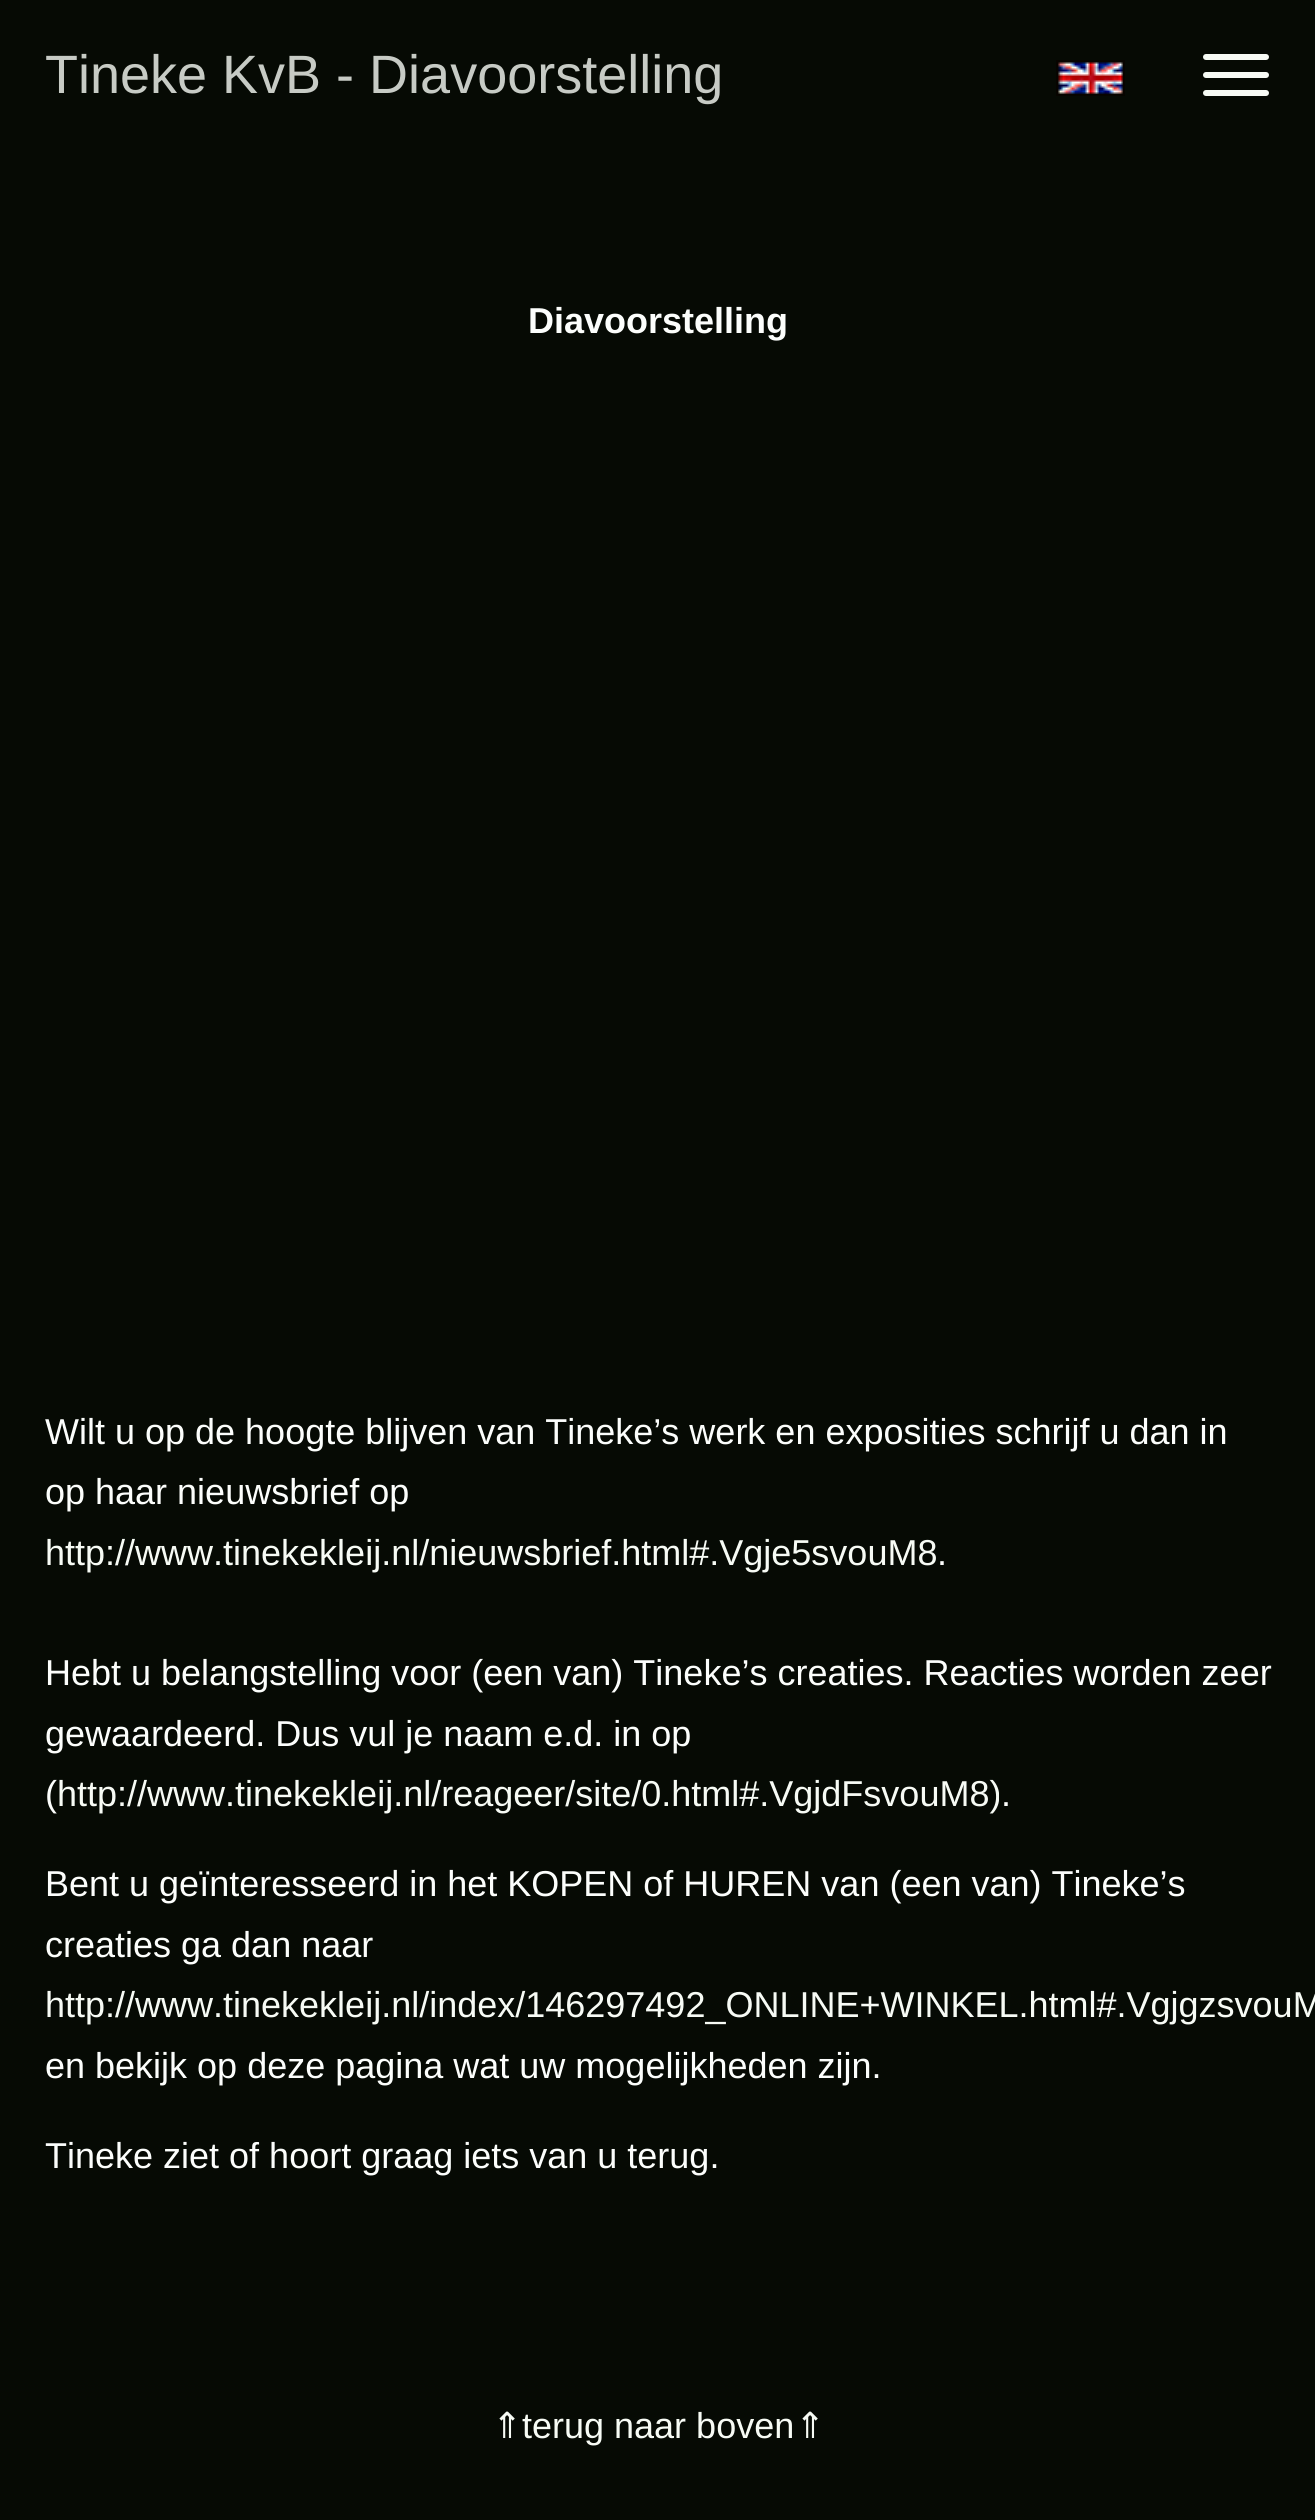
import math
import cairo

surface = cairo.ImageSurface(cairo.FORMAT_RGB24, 1315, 2520)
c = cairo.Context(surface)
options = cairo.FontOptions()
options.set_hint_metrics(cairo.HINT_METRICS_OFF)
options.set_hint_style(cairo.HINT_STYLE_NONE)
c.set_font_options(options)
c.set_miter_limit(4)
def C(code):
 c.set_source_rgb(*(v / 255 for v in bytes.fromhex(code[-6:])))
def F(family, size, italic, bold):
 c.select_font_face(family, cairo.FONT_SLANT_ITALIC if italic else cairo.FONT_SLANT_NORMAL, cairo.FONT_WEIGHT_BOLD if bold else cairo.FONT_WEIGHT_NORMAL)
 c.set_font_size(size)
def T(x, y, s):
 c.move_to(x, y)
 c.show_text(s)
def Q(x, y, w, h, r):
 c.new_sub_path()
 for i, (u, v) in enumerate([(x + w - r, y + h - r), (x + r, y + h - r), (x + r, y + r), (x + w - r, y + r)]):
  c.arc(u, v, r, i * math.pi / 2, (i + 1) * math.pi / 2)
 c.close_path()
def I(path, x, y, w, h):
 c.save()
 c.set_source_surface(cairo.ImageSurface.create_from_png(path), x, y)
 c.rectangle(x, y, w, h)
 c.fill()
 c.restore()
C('060a04')
c.paint()
F('Liberation Sans',54,0,0)
C('c7cbc5')
T(45,93,'Tineke KvB - Diavoorstelling')
C('f7fbf5')
Q(1203,54,66,6,3)
c.fill()
Q(1203,72,66,6,3)
c.fill()
Q(1203,90,66,6,3)
c.fill()
I('1.png',1056,60,69,36)
F('Liberation Sans',36,0,1)
C('fcfefc')
T(528,333,'Diavoorstelling')
F('Liberation Sans',36,0,0)
T(45,1444,'Wilt u op de hoogte blijven van Tineke’s werk en exposities schrijf u dan in')
T(45,1504,'op haar nieuwsbrief op')
C('f7fbf5')
T(45,1565,'http://www.tinekekleij.nl/nieuwsbrief.html#.Vgje5svouM8')
C('fcfefc')
T(937,1565,'.')
T(45,1685,'Hebt u belangstelling voor (een van) Tineke’s creaties. Reacties worden zeer')
T(45,1746,'gewaardeerd. Dus vul je naam e.d. in op')
T(45,1806,'(')
C('f7fbf5')
T(57,1806,'http://www.tinekekleij.nl/reageer/site/0.html#.VgjdFsvouM8)')
C('fcfefc')
T(1001,1806,'.')
T(45,1896,'Bent u geïnteresseerd in het KOPEN of HUREN van (een van) Tineke’s')
T(45,1957,'creaties ga dan naar')
C('f7fbf5')
T(45,2017,'http://www.tinekekleij.nl/index/146297492_ONLINE+WINKEL.html#.VgjgzsvouM')
C('fcfefc')
T(45,2078,'en bekijk op deze pagina wat uw mogelijkheden zijn.')
T(45,2168,'Tineke ziet of hoort graag iets van u terug.')
F('DejaVu Sans',36,0,0)
C('f7fbf5')
T(492,2438,'⇑')
F('Liberation Sans',36,0,0)
T(522,2438,'terug naar boven')
F('DejaVu Sans',36,0,0)
T(795,2438,'⇑')
surface.write_to_png('o.png')
